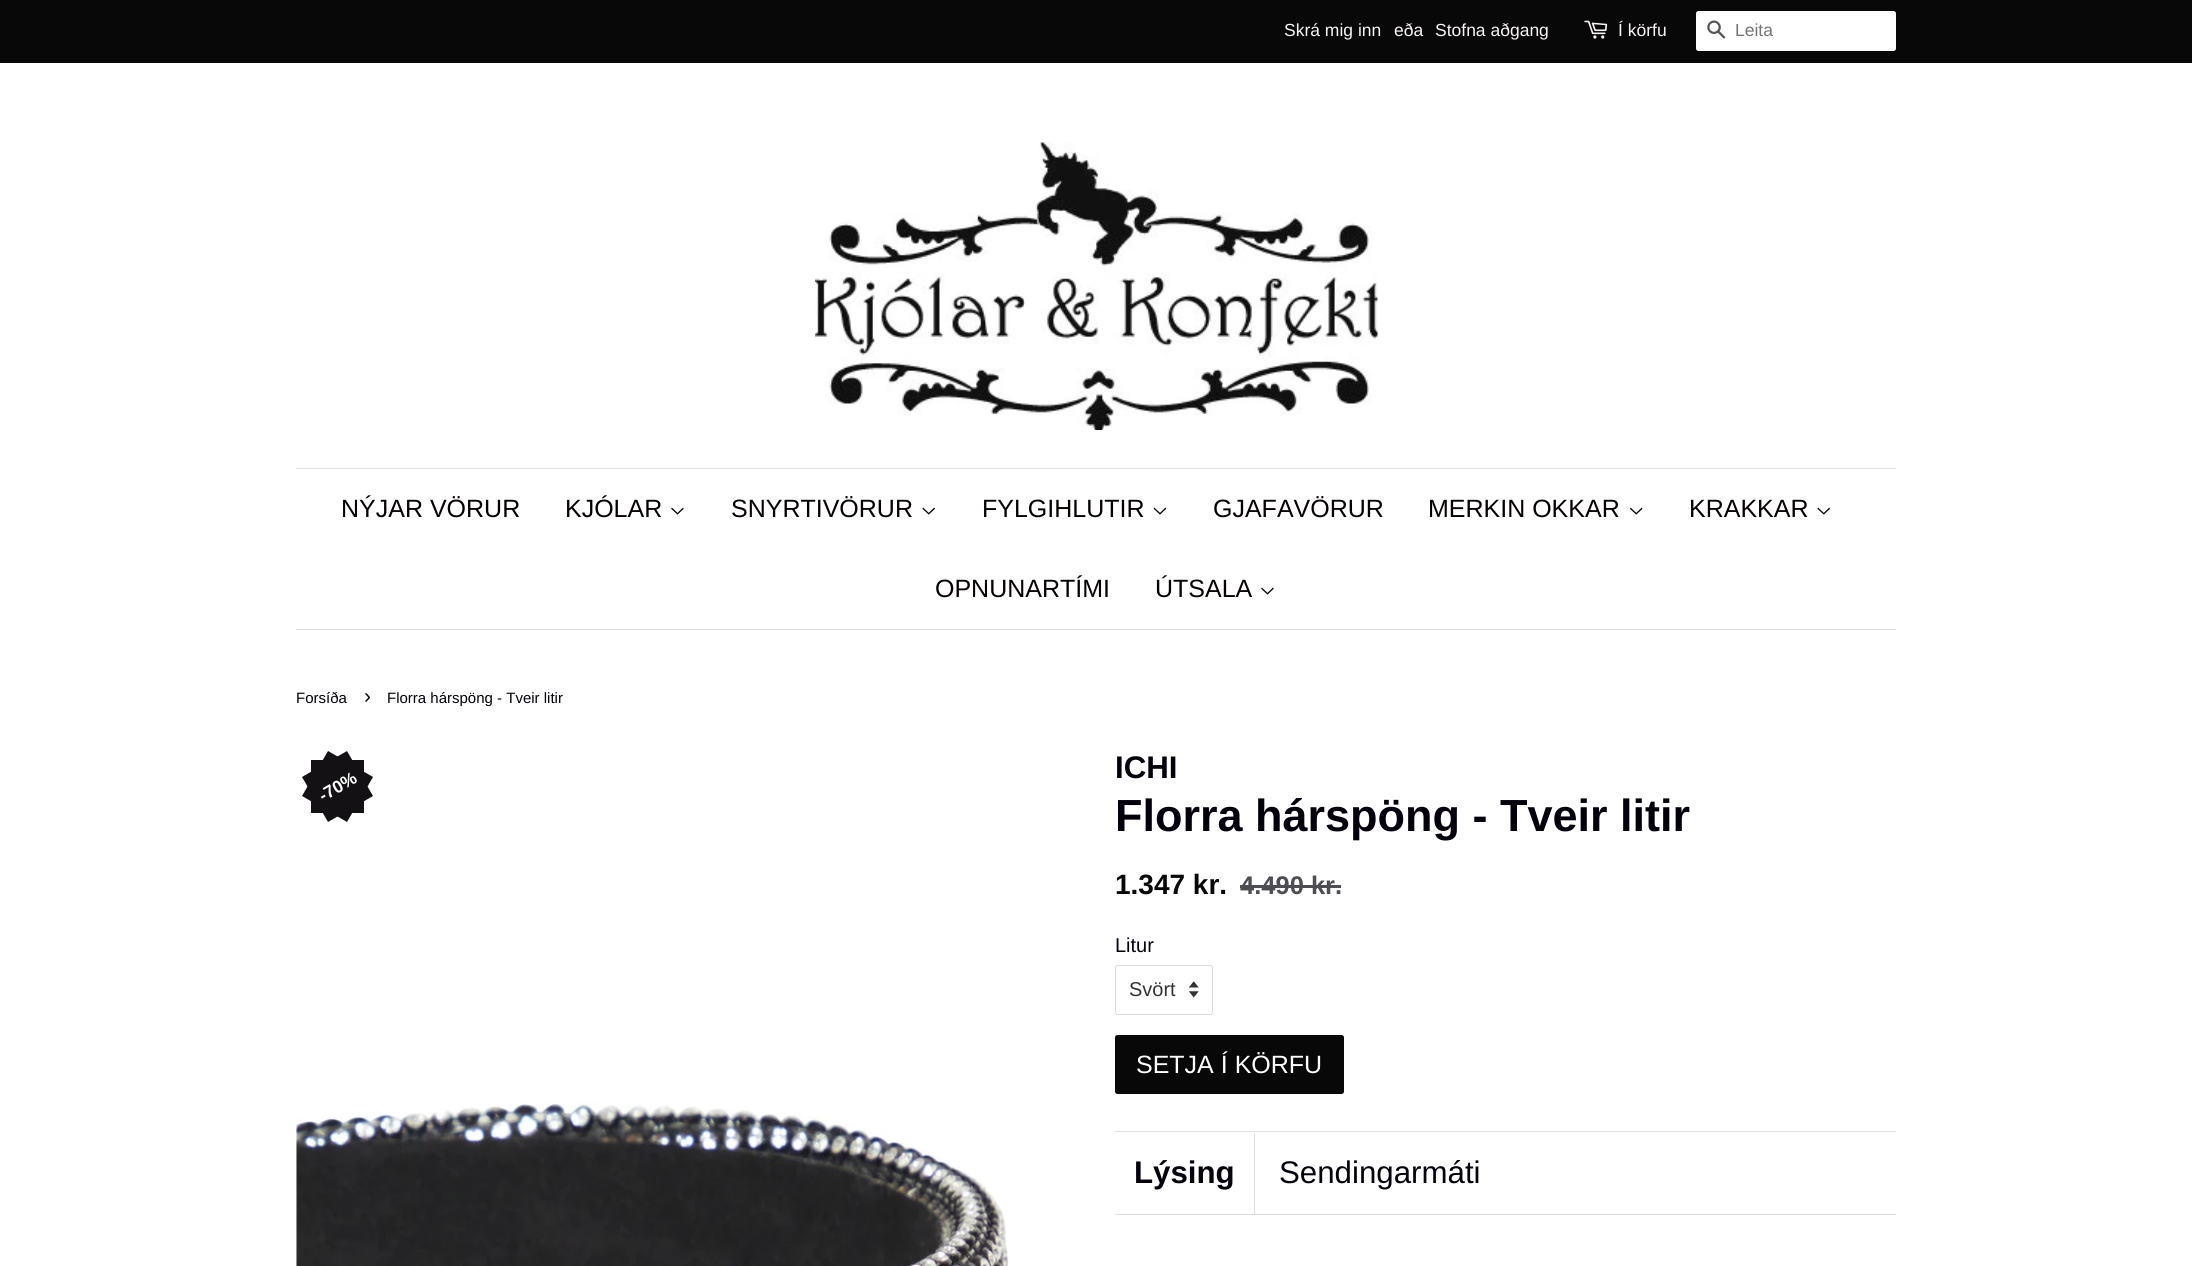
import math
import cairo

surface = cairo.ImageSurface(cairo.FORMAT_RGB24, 2192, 1266)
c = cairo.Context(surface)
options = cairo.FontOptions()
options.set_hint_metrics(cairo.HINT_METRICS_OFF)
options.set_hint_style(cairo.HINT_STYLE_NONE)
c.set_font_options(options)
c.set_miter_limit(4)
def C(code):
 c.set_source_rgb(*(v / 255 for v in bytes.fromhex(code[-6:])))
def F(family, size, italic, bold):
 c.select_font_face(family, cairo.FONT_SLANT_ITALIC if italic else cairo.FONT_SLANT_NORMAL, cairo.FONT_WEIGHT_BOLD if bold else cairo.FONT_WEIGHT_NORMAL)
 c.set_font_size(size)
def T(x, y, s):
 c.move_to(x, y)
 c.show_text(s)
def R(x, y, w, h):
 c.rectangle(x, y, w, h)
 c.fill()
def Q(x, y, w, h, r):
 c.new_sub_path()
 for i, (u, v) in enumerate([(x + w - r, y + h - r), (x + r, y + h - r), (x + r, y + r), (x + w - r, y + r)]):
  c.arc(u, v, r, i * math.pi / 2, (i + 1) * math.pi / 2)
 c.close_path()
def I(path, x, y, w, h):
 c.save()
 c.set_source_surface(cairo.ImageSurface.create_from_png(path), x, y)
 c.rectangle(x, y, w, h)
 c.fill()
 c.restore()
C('ffffff')
c.paint()
C('080808')
R(0,0,2192,63)
F('Liberation Sans',17.5,0,0)
C('f9f4f4')
T(1284,36,'Skrá mig inn')
T(1394,36,'eða')
T(1435,36,'Stofna aðgang')
I('1.png',1584,20,24,19)
T(1618,36,'Í körfu')
C('ffffff')
Q(1696,11,200,40,2.5)
c.fill()
I('2.png',1707,20,19,19)
C('757575')
T(1735,36,'Leita')
I('3.png',815,142,563,288)
C('dddddd')
R(296,468,1600,1)
R(296,629,1600,1)
F('Liberation Sans',25,0,0)
C('040000')
T(341,517,'NÝJAR VÖRUR')
T(565,517,'KJÓLAR')
I('4.png',671,507,13,8)
T(731,517,'SNYRTIVÖRUR')
I('5.png',922,507,13,8)
T(982,517,'FYLGIHLUTIR')
I('6.png',1153,507,14,8)
T(1213,517,'GJAFAVÖRUR')
T(1428,517,'MERKIN OKKAR')
I('7.png',1630,507,13,8)
T(1689,517,'KRAKKAR')
I('5.png',1817,507,13,8)
T(935,597,'OPNUNARTÍMI')
T(1155,597,'ÚTSALA')
I('4.png',1261,587,13,8)
F('Liberation Sans',15,0,0)
C('03000b')
T(296,703,'Forsíða')
F('Liberation Sans',21,0,0)
T(364,703,'›')
F('Liberation Sans',15,0,0)
T(387,703,'Florra hárspöng - Tveir litir')
C('131113')
c.new_path()
c.move_to(302,777)
c.line_to(347,751)
c.line_to(373,796)
c.line_to(328,822)
c.close_path()
c.fill()
R(311,760,53,53)
c.new_path()
c.move_to(302,796)
c.line_to(328,751)
c.line_to(373,777)
c.line_to(347,822)
c.close_path()
c.fill()
F('Liberation Sans',17.5,0,1)
C('ffffff')
c.save()
c.translate(323,802)
c.rotate(-30 * math.pi / 180)
T(0,0,'-')
c.restore()
c.save()
c.translate(328,799)
c.rotate(-30 * math.pi / 180)
T(0,0,'70%')
c.restore()
I('8.png',296,1101,713,165)
F('Liberation Sans',31.25,0,1)
C('03000b')
T(1115,778,'ICHI')
F('Liberation Sans',45,0,1)
T(1115,831,'Florra hárspöng - Tveir litir')
F('Liberation Sans',28,0,1)
C('080808')
T(1115,894,'1.347 kr.')
F('Liberation Sans',25.5,0,1)
C('4f4d54')
T(1240,894,'4.490 kr.')
R(1240,885,101,3)
F('Liberation Sans',20,0,0)
C('03000b')
T(1115,952,'Litur')
I('9.png',1189,981,10,17)
Q(1115.5,965.5,97,49,2)
C('dddddd')
c.set_line_width(1)
c.stroke()
C('333333')
T(1129,996,'Svört')
C('080808')
Q(1115,1035,229,59,2.5)
c.fill()
F('Liberation Sans',25,0,0)
C('ffffff')
T(1136,1073,'SETJA Í KÖRFU')
C('dddddd')
R(1115,1131,781,1)
R(1115,1214,781,1)
R(1254,1133,1,81)
F('Liberation Sans',31.25,0,1)
C('03000b')
T(1134,1183,'Lýsing')
F('Liberation Sans',31.25,0,0)
T(1279,1183,'Sendingarmáti')
surface.write_to_png('o.png')
